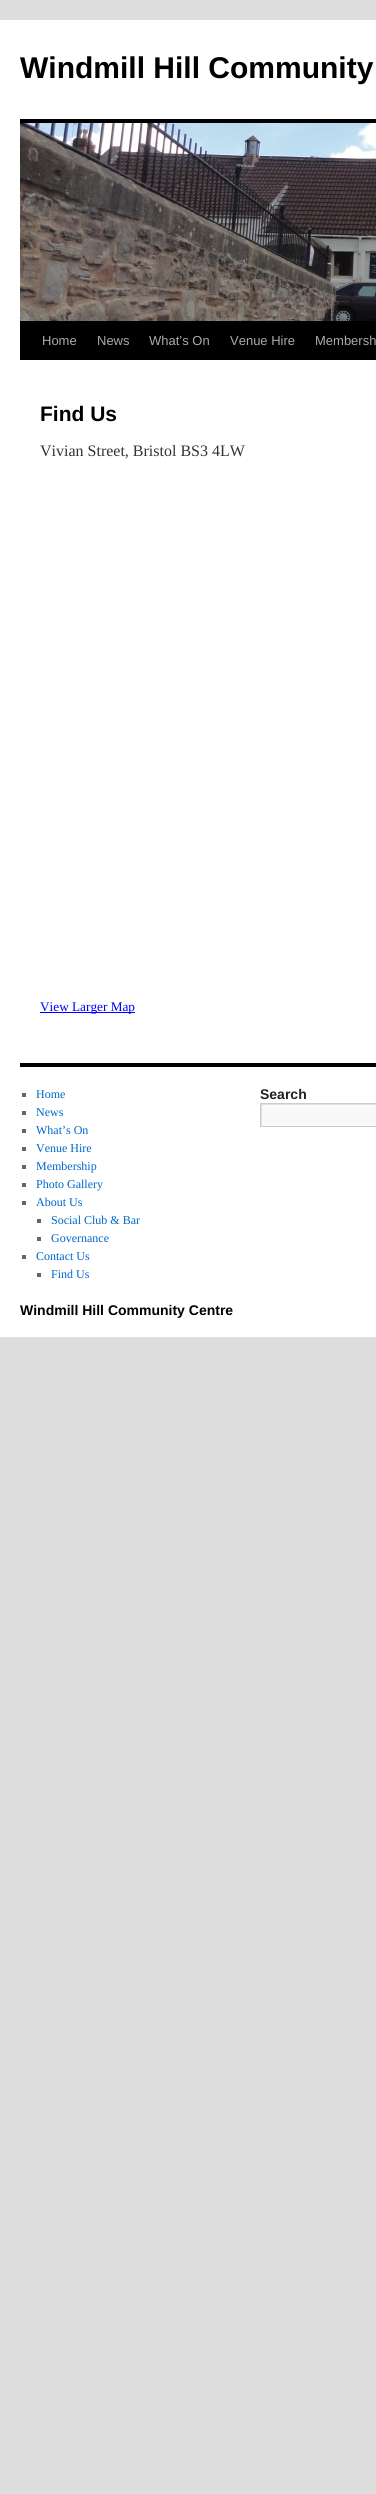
import math
import cairo

surface = cairo.ImageSurface(cairo.FORMAT_RGB24, 376, 2494)
c = cairo.Context(surface)
options = cairo.FontOptions()
options.set_hint_metrics(cairo.HINT_METRICS_OFF)
options.set_hint_style(cairo.HINT_STYLE_NONE)
c.set_font_options(options)
c.set_miter_limit(4)
def C(code):
 c.set_source_rgb(*(v / 255 for v in bytes.fromhex(code[-6:])))
def F(family, size, italic, bold):
 c.select_font_face(family, cairo.FONT_SLANT_ITALIC if italic else cairo.FONT_SLANT_NORMAL, cairo.FONT_WEIGHT_BOLD if bold else cairo.FONT_WEIGHT_NORMAL)
 c.set_font_size(size)
def T(x, y, s):
 c.move_to(x, y)
 c.show_text(s)
def R(x, y, w, h):
 c.rectangle(x, y, w, h)
 c.fill()
def I(path, x, y, w, h):
 c.save()
 c.set_source_surface(cairo.ImageSurface.create_from_png(path), x, y)
 c.rectangle(x, y, w, h)
 c.fill()
 c.restore()
C('dddddd')
c.paint()
C('ffffff')
R(0,20,376,1317)
F('Liberation Sans',30,0,1)
C('000000')
T(20,78,'Windmill Hill Community')
R(20,119,356,4)
R(20,321,356,39)
I('1.png',20,123,356,198)
F('Liberation Sans',13,0,0)
C('aaaaaa')
T(42,345,'Home')
T(97,345,'News')
T(149,345,'What’s On')
T(230,345,'Venue Hire')
T(315,345,'Membersh')
F('Liberation Sans',21,0,1)
C('000000')
T(40,421,'Find Us')
F('Liberation Serif',16,0,0)
C('333333')
T(40,456,'Vivian Street, Bristol BS3 4LW')
C('0000ff')
R(40,1012,95,1)
F('Liberation Serif',13.25,0,0)
T(40,1011,'View Larger Map')
C('000000')
R(20,1063,356,4)
C('666666')
R(22,1093,4,4)
F('Liberation Serif',12,0,0)
C('0066cc')
T(36,1098,'Home')
C('666666')
R(22,1111,4,4)
C('0066cc')
T(36,1116,'News')
C('666666')
R(22,1129,4,4)
C('0066cc')
T(36,1134,'What’s On')
C('666666')
R(22,1147,4,4)
C('0066cc')
T(36,1152,'Venue Hire')
C('666666')
R(22,1165,4,4)
C('0066cc')
T(36,1170,'Membership')
C('666666')
R(22,1183,4,4)
C('0066cc')
T(36,1188,'Photo Gallery')
C('666666')
R(22,1201,4,4)
C('0066cc')
T(36,1206,'About Us')
C('666666')
R(37,1219,4,4)
C('0066cc')
T(51,1224,'Social Club & Bar')
C('666666')
R(37,1237,4,4)
C('0066cc')
T(51,1242,'Governance')
C('666666')
R(22,1255,4,4)
C('0066cc')
T(36,1260,'Contact Us')
C('666666')
R(37,1273,4,4)
C('0066cc')
T(51,1278,'Find Us')
F('Liberation Sans',14,0,1)
C('222222')
T(260,1099,'Search')
C('f9f9f9')
R(262,1105,114,21)
c.save()
c.rectangle(261,1104,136,22)
c.clip()
C('e0e0e0')
c.set_fill_rule(cairo.FILL_RULE_EVEN_ODD)
c.new_path()
c.move_to(162,1005)
c.line_to(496,1005)
c.line_to(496,1225)
c.line_to(162,1225)
c.close_path()
c.move_to(262,1105)
c.line_to(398,1105)
c.line_to(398,1127)
c.line_to(262,1127)
c.close_path()
c.fill()
c.restore()
c.rectangle(260.5,1103.5,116,23)
C('cccccc')
c.set_line_width(1)
c.stroke()
C('000000')
T(20,1315,'Windmill Hill Community Centre')
surface.write_to_png('o.png')
